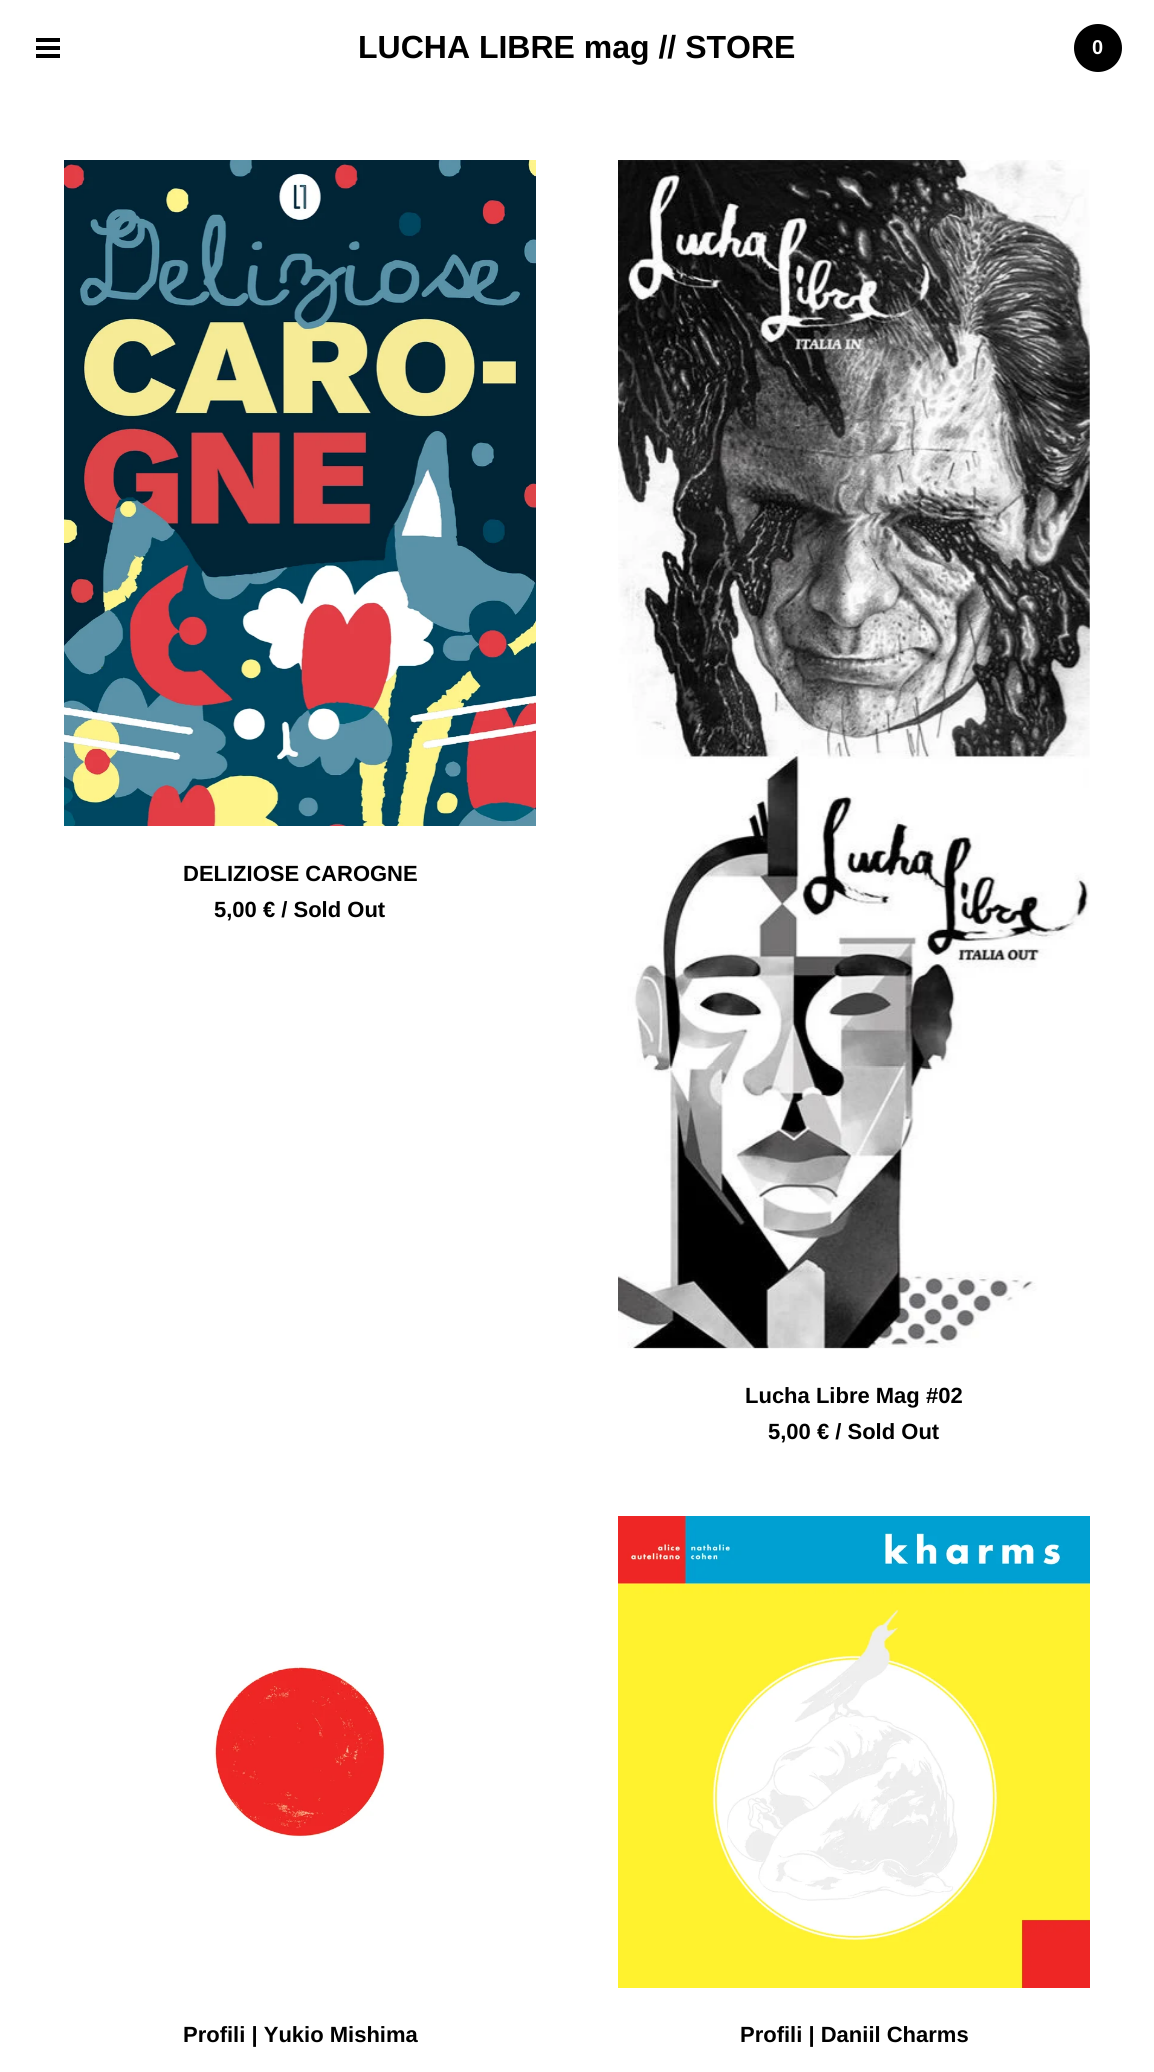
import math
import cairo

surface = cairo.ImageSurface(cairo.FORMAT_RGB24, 1154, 2072)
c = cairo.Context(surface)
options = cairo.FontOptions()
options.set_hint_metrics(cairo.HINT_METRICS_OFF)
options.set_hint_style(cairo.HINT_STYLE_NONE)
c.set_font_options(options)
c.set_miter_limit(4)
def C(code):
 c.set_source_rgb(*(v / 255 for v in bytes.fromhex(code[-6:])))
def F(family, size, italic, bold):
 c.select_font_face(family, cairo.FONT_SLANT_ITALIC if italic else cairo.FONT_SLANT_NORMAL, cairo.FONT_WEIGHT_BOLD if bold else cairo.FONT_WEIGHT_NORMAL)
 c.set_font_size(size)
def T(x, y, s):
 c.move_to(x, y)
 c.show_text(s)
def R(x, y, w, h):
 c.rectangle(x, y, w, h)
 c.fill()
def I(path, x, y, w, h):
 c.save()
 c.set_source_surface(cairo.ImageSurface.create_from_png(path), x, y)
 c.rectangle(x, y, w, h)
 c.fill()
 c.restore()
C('ffffff')
c.paint()
C('000000')
R(36,46,24,4)
R(36,38,24,4)
R(36,54,24,4)
F('Liberation Sans',32,0,1)
T(358,58,'LUCHA LIBRE mag // STORE')
c.new_path()
c.arc(1098,48,24,0,2 * math.pi)
c.fill()
F('Liberation Sans',20,0,1)
C('ffffff')
T(1092,54,'0')
I('1.png',64,160,472,666)
F('Liberation Sans',22,0,1)
C('000000')
T(183,881,'DELIZIOSE CAROGNE')
T(214,917,'5,00 € / Sold Out')
I('2.png',618,160,472,1189)
T(745,1403,'Lucha Libre Mag #02')
T(768,1439,'5,00 € / Sold Out')
I('3.png',214,1666,172,172)
T(183,2042,'Profili | Yukio Mishima')
I('4.png',618,1516,472,472)
T(740,2042,'Profili | Daniil Charms')
surface.write_to_png('o.png')
